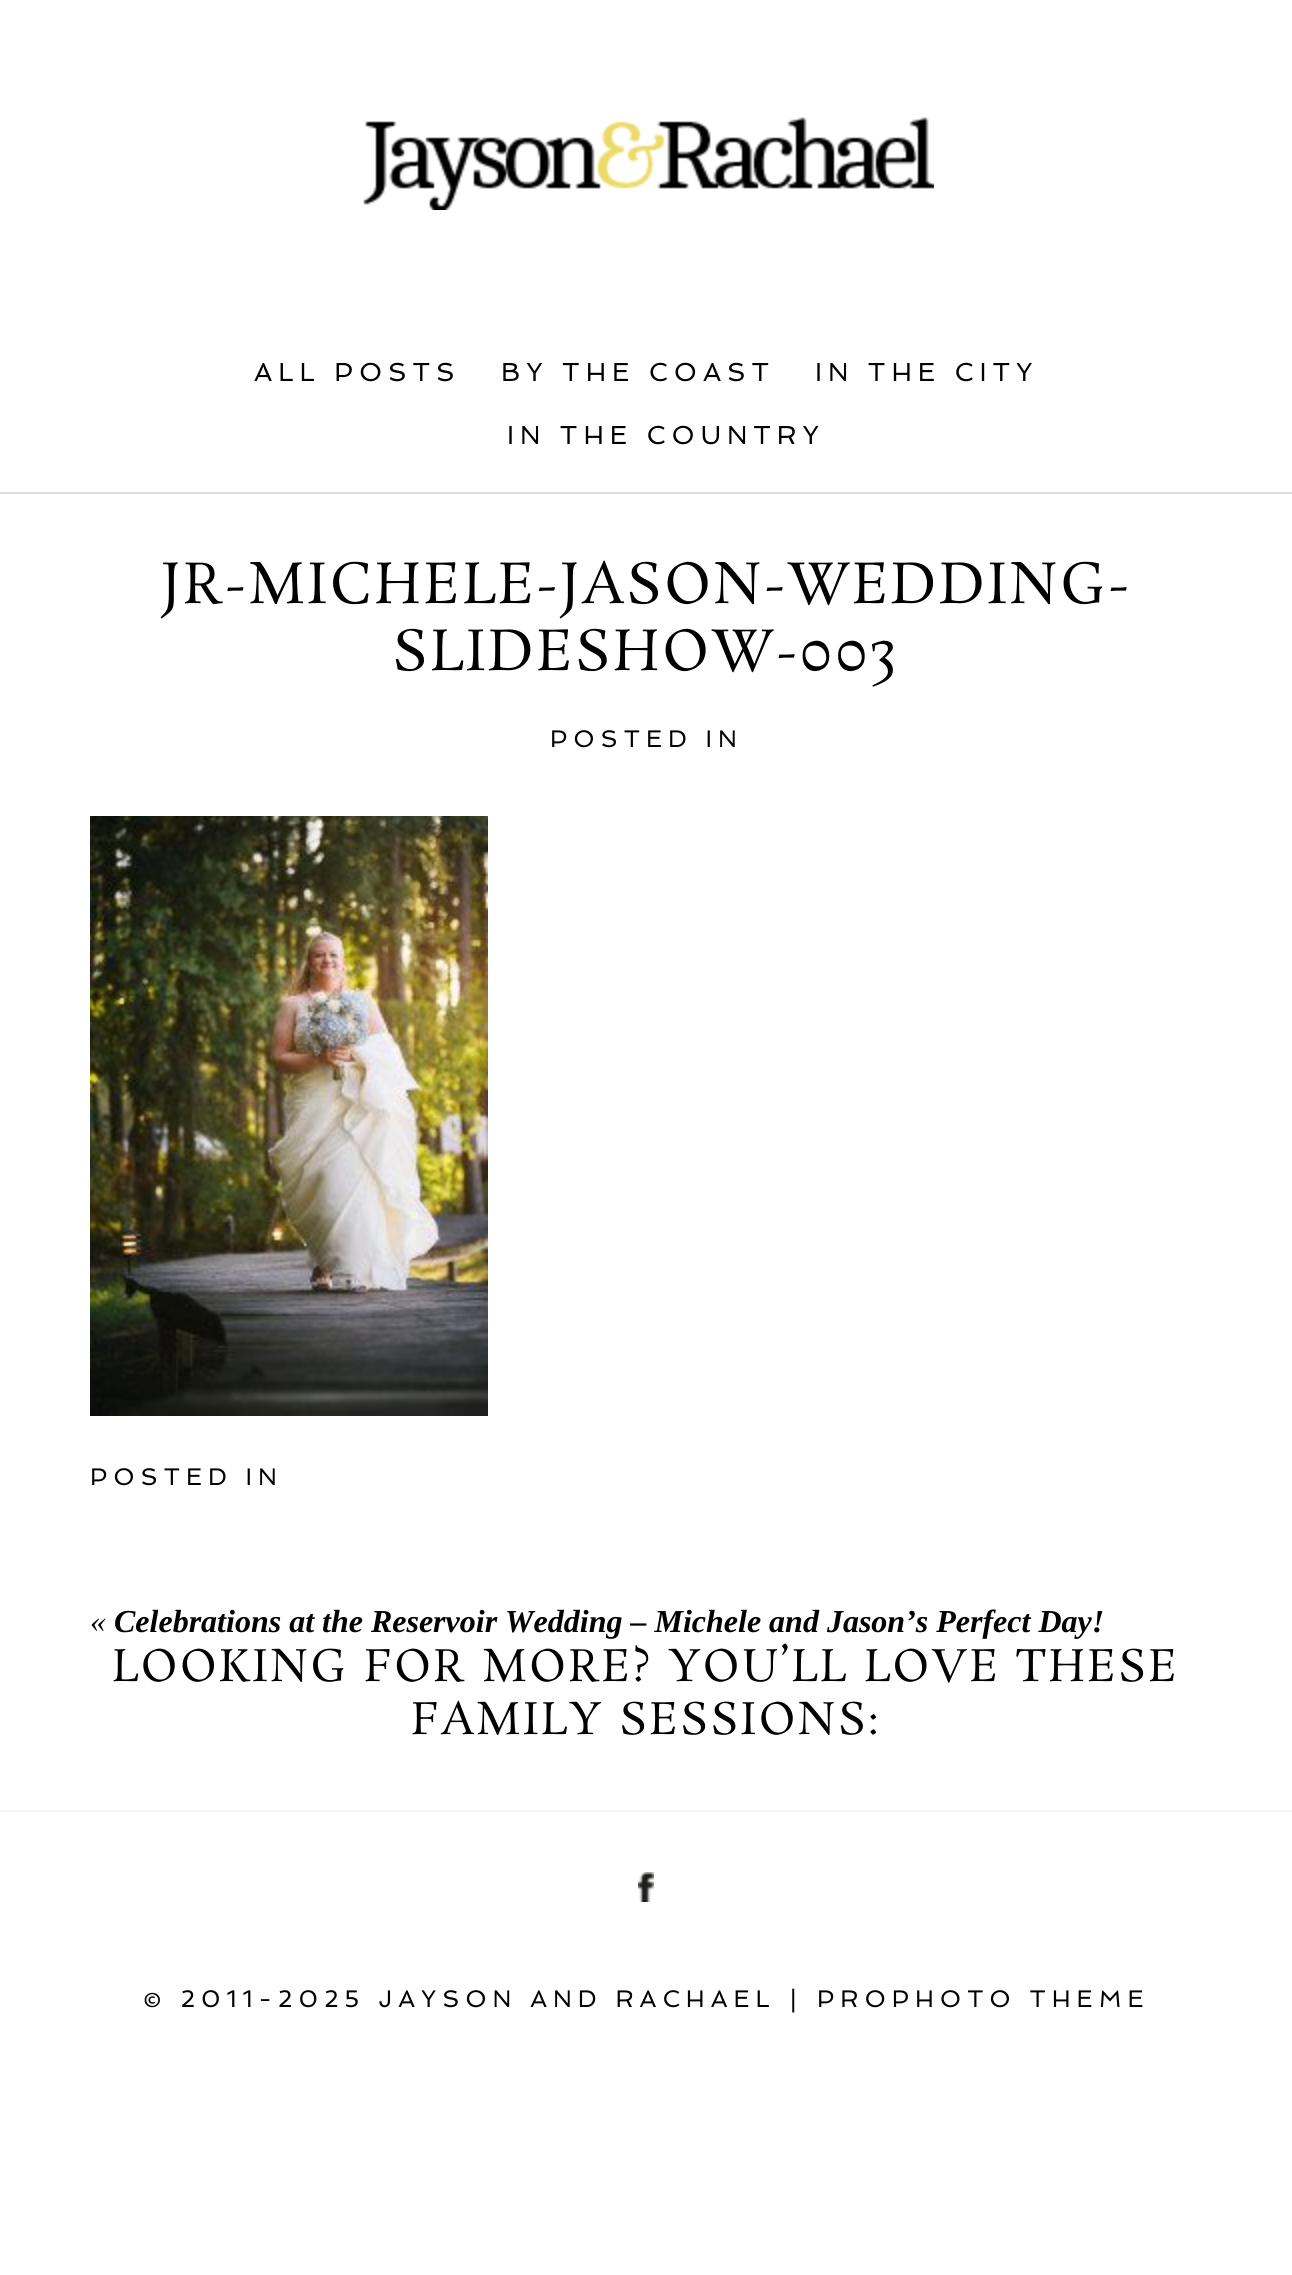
import math
import cairo

surface = cairo.ImageSurface(cairo.FORMAT_RGB24, 1292, 2275)
c = cairo.Context(surface)
options = cairo.FontOptions()
options.set_hint_metrics(cairo.HINT_METRICS_OFF)
options.set_hint_style(cairo.HINT_STYLE_NONE)
c.set_font_options(options)
c.set_miter_limit(4)
def C(code):
 c.set_source_rgb(*(v / 255 for v in bytes.fromhex(code[-6:])))
def F(family, size, italic, bold):
 c.select_font_face(family, cairo.FONT_SLANT_ITALIC if italic else cairo.FONT_SLANT_NORMAL, cairo.FONT_WEIGHT_BOLD if bold else cairo.FONT_WEIGHT_NORMAL)
 c.set_font_size(size)
def T(x, y, s):
 c.move_to(x, y)
 c.show_text(s)
def L(x, y, s, letter, word):
 c.move_to(x, y)
 for ch in s:
  c.show_text(ch)
  c.rel_move_to(letter + word * (ch == ' '), 0)
def R(x, y, w, h):
 c.rectangle(x, y, w, h)
 c.fill()
def I(path, x, y, w, h):
 c.save()
 c.set_source_surface(cairo.ImageSurface.create_from_png(path), x, y)
 c.rectangle(x, y, w, h)
 c.fill()
 c.restore()
C('ffffff')
c.paint()
I('1.png',363,117,571,93)
C('dedede')
R(0,492,1292,2)
F('Spinnaker',26,0,0)
C('000000')
L(254,381,'ALL POSTS',6,0)
L(501,381,'BY THE COAST',6,0)
L(815,381,'IN THE CITY',6,0)
L(507,444,'IN THE COUNTRY',6,0)
F('Rosarivo',56,0,0)
L(161,603,'JR-MICHELE-JASON-WEDDING-',2.25,0)
L(392,670,'SLIDESHOW-003',2.25,0)
F('Spinnaker',24,0,0)
L(550,747,'POSTED IN',6,0)
I('2.png',90,816,398,600)
L(90,1485,'POSTED IN',6,0)
F('Liberation Serif',32,1,0)
T(90,1632,'«')
F('Liberation Serif',32,1,1)
T(114,1632,'Celebrations at the Reservoir Wedding – Michele and Jason’s Perfect Day!')
F('Rosarivo',44,0,0)
L(112,1681,'LOOKING FOR MORE? YOU’LL LOVE THESE',2.2,0)
L(411,1734,'FAMILY SESSIONS:',2.2,0)
C('f5f5f5')
R(0,1810,1292,2)
I('3.png',638,1872,16,30)
F('Spinnaker',24,0,0)
C('000000')
L(143,2007,'© 2011-2025 JAYSON AND RACHAEL',6,0)
L(790,2007,'|',6,0)
L(817,2007,'PROPHOTO THEME',6,0)
surface.write_to_png('o.png')
